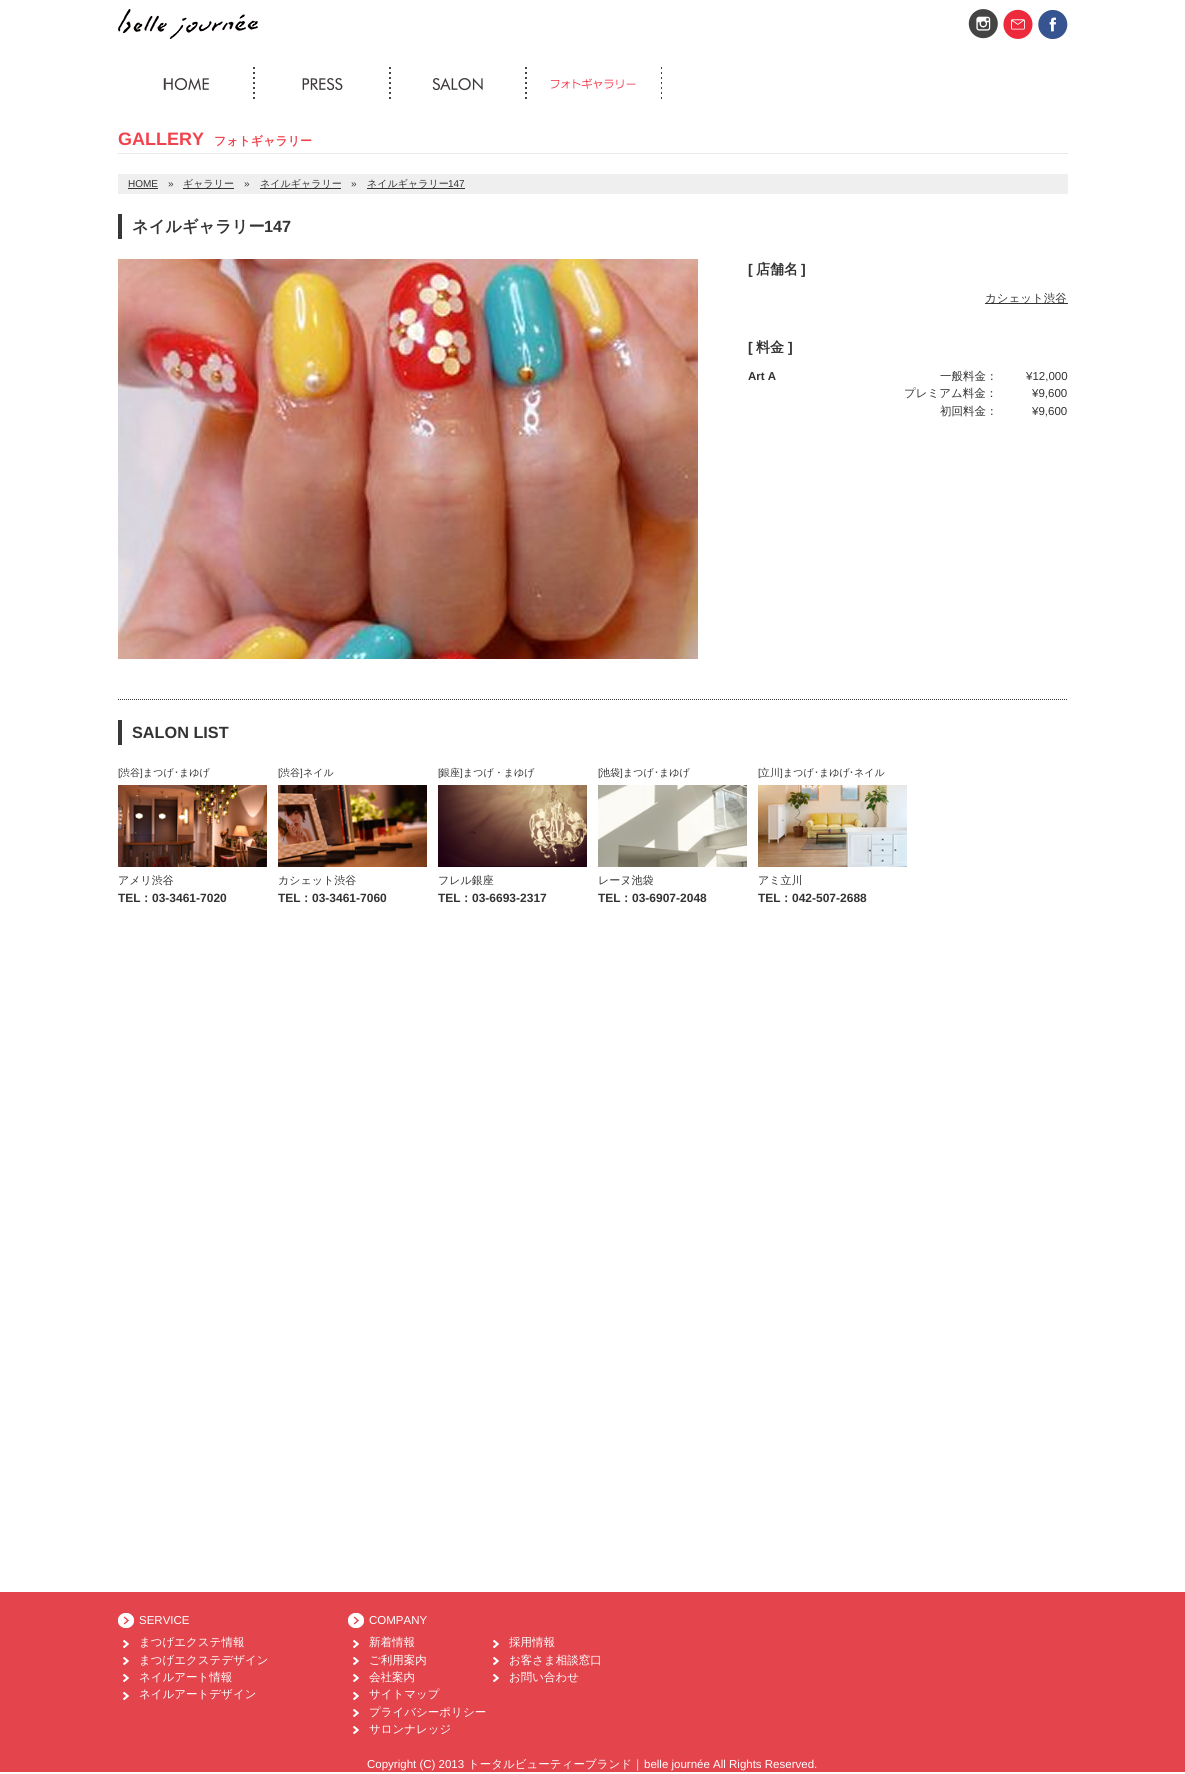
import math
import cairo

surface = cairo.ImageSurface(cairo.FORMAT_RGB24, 1185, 1774)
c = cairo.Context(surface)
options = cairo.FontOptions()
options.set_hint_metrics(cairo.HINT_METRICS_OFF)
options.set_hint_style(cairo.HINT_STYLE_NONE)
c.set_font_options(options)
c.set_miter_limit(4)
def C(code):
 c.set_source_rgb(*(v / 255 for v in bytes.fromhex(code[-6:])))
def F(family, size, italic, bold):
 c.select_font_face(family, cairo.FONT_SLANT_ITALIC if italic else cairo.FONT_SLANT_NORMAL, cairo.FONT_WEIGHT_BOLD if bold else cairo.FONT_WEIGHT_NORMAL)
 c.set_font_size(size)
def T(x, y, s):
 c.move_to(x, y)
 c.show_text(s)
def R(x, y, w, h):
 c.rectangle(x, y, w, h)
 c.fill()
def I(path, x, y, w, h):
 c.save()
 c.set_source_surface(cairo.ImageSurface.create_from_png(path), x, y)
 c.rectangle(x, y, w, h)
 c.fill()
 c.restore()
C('ffffff')
c.paint()
I('1.png',118,9,140,30)
I('2.png',968,9,30,30)
I('3.png',1003,9,30,30)
I('4.png',1038,9,30,30)
I('5.png',163,67,91,32)
I('6.png',254,67,136,32)
I('7.png',390,67,136,32)
I('8.png',526,67,136,32)
C('e9e9e9')
R(118,153,950,1)
F('Liberation Sans',18,0,1)
C('f1434d')
T(118,145,'GALLERY')
F('WenQuanYi Zen Hei',12,0,1)
T(214,145,'フォトギャラリー')
C('efefef')
R(118,174,950,20)
F('Liberation Sans',10,0,0)
C('333333')
T(128,187,'HOME')
R(128,188,30,1)
T(168,187,'»')
R(183,188,51,1)
F('WenQuanYi Zen Hei Medium',10,0,0)
T(183,187,'ギャラリー')
F('Liberation Sans',10,0,0)
T(244,187,'»')
R(260,188,81,1)
F('WenQuanYi Zen Hei Medium',10,0,0)
T(260,187,'ネイルギャラリー')
F('Liberation Sans',10,0,0)
T(351,187,'»')
R(367,188,98,1)
F('WenQuanYi Zen Hei Medium',10,0,0)
T(367,187,'ネイルギャラリー')
F('Liberation Sans',10,0,0)
T(448,187,'147')
C('383735')
R(118,214,4,25)
F('WenQuanYi Zen Hei',16.25,0,1)
C('333333')
T(132,232,'ネイルギャラリー')
F('Liberation Sans',16.25,0,1)
T(264,232,'147')
I('9.png',118,259,580,400)
F('Liberation Sans',14,0,1)
T(748,274,'[')
F('WenQuanYi Zen Hei',14,0,1)
T(756,274,'店舗名')
F('Liberation Sans',14,0,1)
T(801,274,']')
R(985,303,83,1)
F('WenQuanYi Zen Hei Medium',11.5,0,0)
T(985,302,'カシェット渋谷')
F('Liberation Sans',14,0,1)
T(748,352,'[')
F('WenQuanYi Zen Hei',14,0,1)
T(756,352,'料金')
F('Liberation Sans',14,0,1)
T(788,352,']')
F('Liberation Sans',11.5,0,1)
T(748,380,'Art A')
F('WenQuanYi Zen Hei Medium',11.5,0,0)
T(940,380,'一般料金：')
F('Liberation Sans',11.5,0,0)
T(1026,380,'¥12,000')
F('WenQuanYi Zen Hei Medium',11.5,0,0)
T(904,397,'プレミアム料金：')
F('Liberation Sans',11.5,0,0)
T(1032,397,'¥9,600')
F('WenQuanYi Zen Hei Medium',11.5,0,0)
T(940,415,'初回料金：')
F('Liberation Sans',11.5,0,0)
T(1032,415,'¥9,600')
c.new_path()
c.move_to(118,699.5)
c.line_to(1068,699.5)
C('383735')
c.set_line_width(1)
c.set_dash([1,1])
c.stroke()
R(118,720,4,25)
F('Liberation Sans',16.25,0,1)
C('333333')
T(132,738,'SALON LIST')
F('Liberation Sans',10,0,0)
T(118,776,'[')
F('WenQuanYi Zen Hei Medium',10,0,0)
T(120,776,'渋谷 まつげ')
T(179,776,'まゆげ')
F('Liberation Sans',10,0,0)
T(140,776,']')
F('IPAPGothic',10,0,0)
T(174,776,'･')
I('10.png',118,785,149,82)
F('WenQuanYi Zen Hei Medium',11,0,0)
T(118,884,'アメリ渋谷')
F('Liberation Sans',12,0,1)
T(118,902,'TEL')
F('WenQuanYi Zen Hei',12,0,1)
T(140,902,'：')
F('Liberation Sans',12,0,1)
T(152,902,'03-3461-7020')
F('Liberation Sans',10,0,0)
T(278,776,'[')
F('WenQuanYi Zen Hei Medium',10,0,0)
T(280,776,'渋谷 ネイル')
F('Liberation Sans',10,0,0)
T(300,776,']')
I('11.png',278,785,149,82)
F('WenQuanYi Zen Hei Medium',11,0,0)
T(278,884,'カシェット渋谷')
F('Liberation Sans',12,0,1)
T(278,902,'TEL')
F('WenQuanYi Zen Hei',12,0,1)
T(300,902,'：')
F('Liberation Sans',12,0,1)
T(312,902,'03-3461-7060')
F('Liberation Sans',10,0,0)
T(438,776,'[')
F('WenQuanYi Zen Hei Medium',10,0,0)
T(440,776,'銀座 まつげ・まゆげ')
F('Liberation Sans',10,0,0)
T(460,776,']')
I('12.png',438,785,149,82)
F('WenQuanYi Zen Hei Medium',11,0,0)
T(438,884,'フレル銀座')
F('Liberation Sans',12,0,1)
T(438,902,'TEL')
F('WenQuanYi Zen Hei',12,0,1)
T(460,902,'：')
F('Liberation Sans',12,0,1)
T(472,902,'03-6693-2317')
F('Liberation Sans',10,0,0)
T(598,776,'[')
F('WenQuanYi Zen Hei Medium',10,0,0)
T(600,776,'池袋 まつげ')
T(659,776,'まゆげ')
F('Liberation Sans',10,0,0)
T(620,776,']')
F('IPAPGothic',10,0,0)
T(654,776,'･')
I('13.png',598,785,149,82)
F('WenQuanYi Zen Hei Medium',11,0,0)
T(598,884,'レーヌ池袋')
F('Liberation Sans',12,0,1)
T(598,902,'TEL')
F('WenQuanYi Zen Hei',12,0,1)
T(620,902,'：')
F('Liberation Sans',12,0,1)
T(632,902,'03-6907-2048')
F('Liberation Sans',10,0,0)
T(758,776,'[')
F('WenQuanYi Zen Hei Medium',10,0,0)
T(760,776,'立川 まつげ')
T(819,776,'まゆげ')
F('Liberation Sans',10,0,0)
T(780,776,']')
F('IPAPGothic',10,0,0)
T(814,776,'･')
T(849,776,'･')
F('WenQuanYi Zen Hei Medium',10,0,0)
T(854,776,'ネイル')
I('14.png',758,785,149,82)
F('WenQuanYi Zen Hei Medium',11,0,0)
T(758,884,'アミ立川')
F('Liberation Sans',12,0,1)
T(758,902,'TEL')
F('WenQuanYi Zen Hei',12,0,1)
T(780,902,'：')
F('Liberation Sans',12,0,1)
T(792,902,'042-507-2688')
C('e4444c')
R(0,1592,1185,180)
I('15.png',118,1613,16,15)
F('Liberation Sans',11.5,0,0)
C('ffffff')
T(139,1624,'SERVICE')
I('16.png',123,1640,6,8)
F('WenQuanYi Zen Hei Medium',11.5,0,0)
T(139,1646,'まつげエクステ情報')
I('16.png',123,1657,6,8)
T(139,1664,'まつげエクステデザイン')
I('16.png',123,1674,6,8)
T(139,1681,'ネイルアート情報')
I('16.png',123,1692,6,8)
T(139,1698,'ネイルアートデザイン')
I('15.png',348,1613,16,15)
F('Liberation Sans',11.5,0,0)
T(369,1624,'COMPANY')
I('16.png',353,1640,6,8)
F('WenQuanYi Zen Hei Medium',11.5,0,0)
T(369,1646,'新着情報')
I('16.png',353,1657,6,8)
T(369,1664,'ご利用案内')
I('16.png',353,1674,6,8)
T(369,1681,'会社案内')
I('16.png',493,1640,6,8)
T(509,1646,'採用情報')
I('16.png',493,1657,6,8)
T(509,1664,'お客さま相談窓口')
I('16.png',493,1674,6,8)
T(509,1681,'お問い合わせ')
I('16.png',353,1692,6,8)
T(369,1698,'サイトマップ')
I('16.png',353,1709,6,8)
T(369,1716,'プライバシーポリシー')
I('16.png',353,1726,6,8)
T(369,1733,'サロンナレッジ')
F('Liberation Sans',11.5,0,0)
T(367,1768,'Copyright (C) 2013')
F('WenQuanYi Zen Hei Medium',11.5,0,0)
T(468,1768,'トータルビューティーブランド｜')
F('Liberation Sans',11.5,0,0)
T(644,1768,'belle journée All Rights Reserved.')
surface.write_to_png('o.png')
